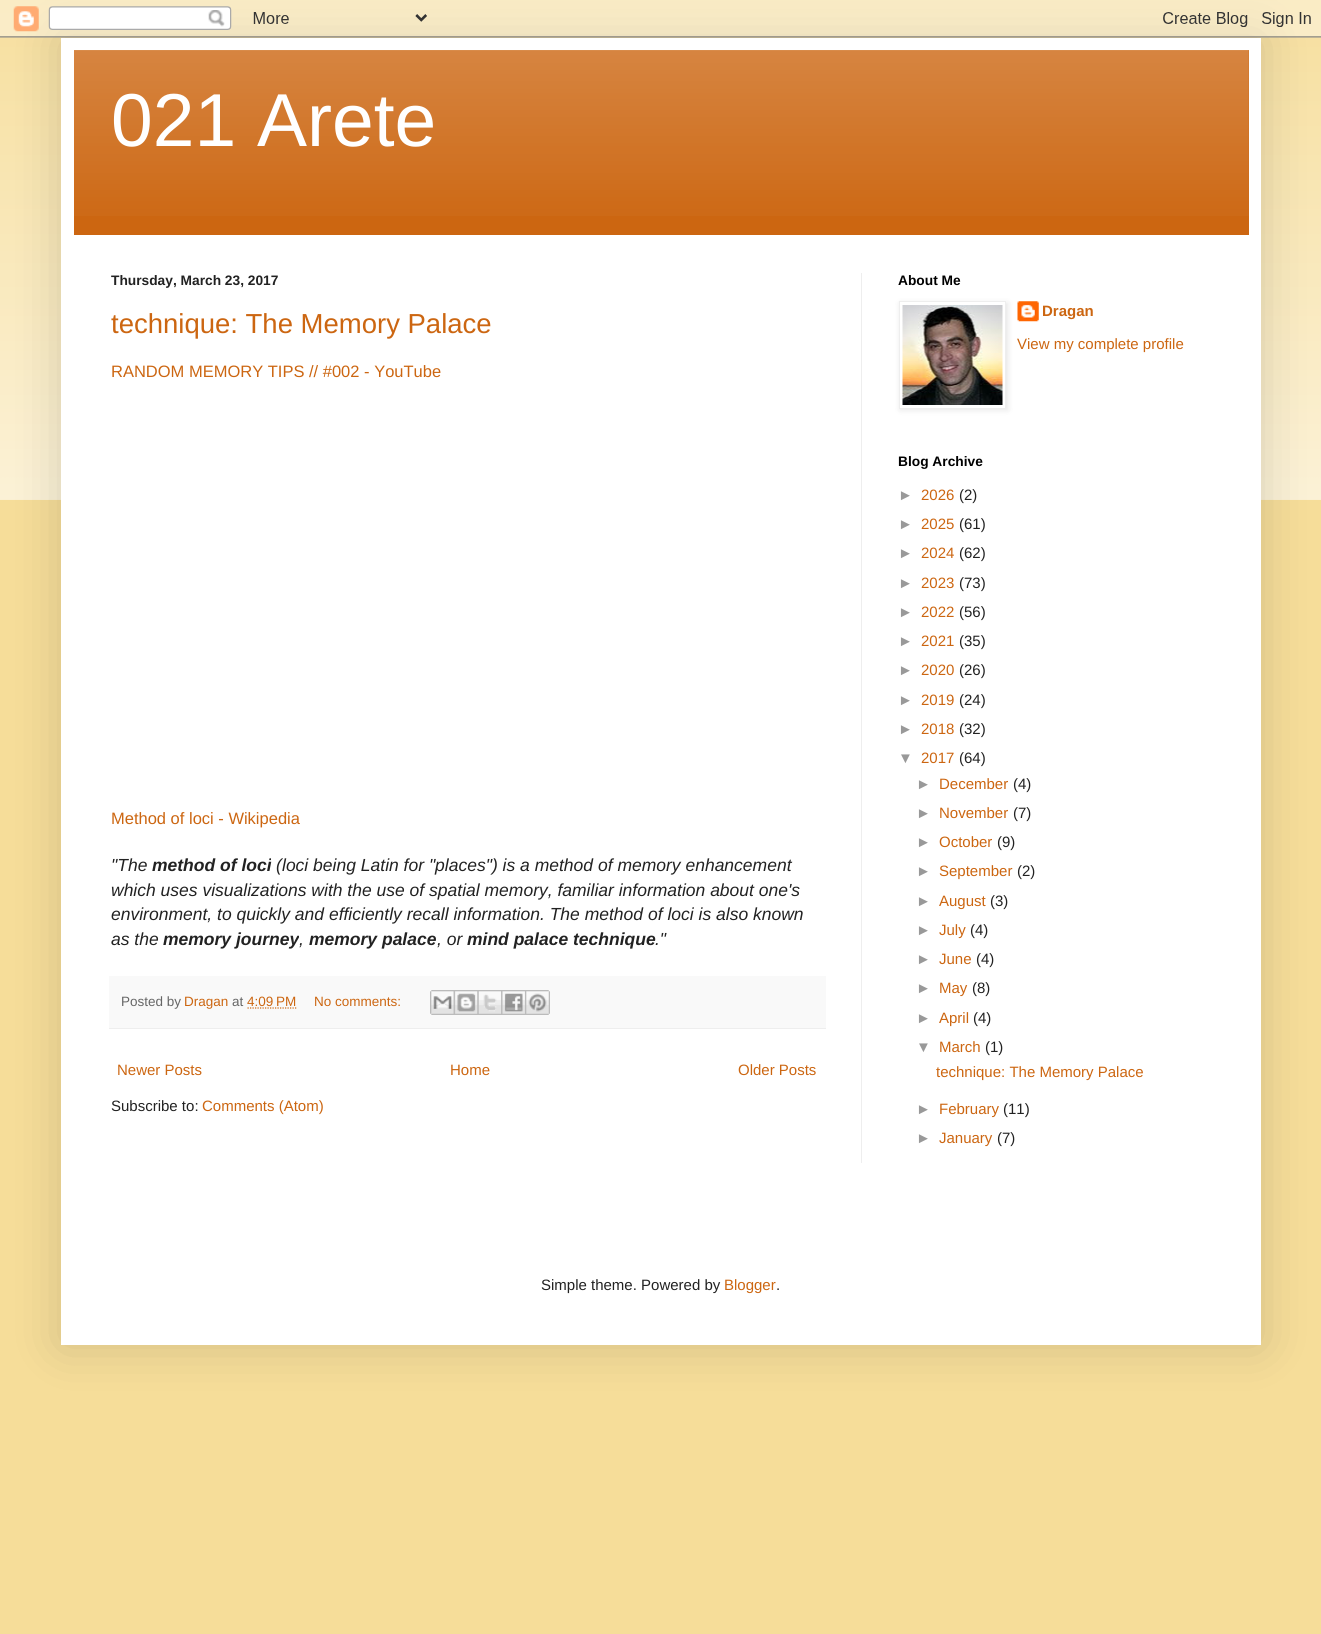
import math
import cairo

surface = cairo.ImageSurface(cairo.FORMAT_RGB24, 1321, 1634)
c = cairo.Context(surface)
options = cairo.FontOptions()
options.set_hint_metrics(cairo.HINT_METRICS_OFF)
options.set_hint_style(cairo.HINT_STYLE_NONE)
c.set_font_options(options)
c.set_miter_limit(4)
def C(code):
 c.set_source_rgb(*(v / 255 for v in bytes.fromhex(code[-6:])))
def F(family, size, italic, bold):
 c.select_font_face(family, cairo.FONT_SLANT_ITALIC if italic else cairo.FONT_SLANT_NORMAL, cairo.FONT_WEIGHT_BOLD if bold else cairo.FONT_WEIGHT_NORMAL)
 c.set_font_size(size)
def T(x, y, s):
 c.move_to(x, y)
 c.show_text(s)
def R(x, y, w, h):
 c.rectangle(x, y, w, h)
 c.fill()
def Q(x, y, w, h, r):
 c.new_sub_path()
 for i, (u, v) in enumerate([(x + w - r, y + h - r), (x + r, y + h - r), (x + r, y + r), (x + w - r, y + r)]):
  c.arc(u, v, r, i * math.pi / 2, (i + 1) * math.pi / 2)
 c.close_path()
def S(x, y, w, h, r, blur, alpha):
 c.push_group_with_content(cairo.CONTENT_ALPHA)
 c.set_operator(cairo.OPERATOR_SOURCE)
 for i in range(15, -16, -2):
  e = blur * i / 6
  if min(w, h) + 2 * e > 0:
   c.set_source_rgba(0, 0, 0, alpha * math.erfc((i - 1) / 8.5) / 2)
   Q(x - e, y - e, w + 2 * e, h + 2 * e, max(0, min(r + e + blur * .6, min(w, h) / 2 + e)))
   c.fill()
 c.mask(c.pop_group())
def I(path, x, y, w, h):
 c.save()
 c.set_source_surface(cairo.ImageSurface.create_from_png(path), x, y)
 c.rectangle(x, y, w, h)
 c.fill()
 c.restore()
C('f6dd99')
c.paint()
I('1.png',0,0,1321,500)
C('000000')
S(61,38,1200,1307,0,25,.15)
I('2.png',0,0,1321,38)
C('ffffff')
R(61,38,1200,1307)
C('cc6611')
R(74,50,1175,185)
I('3.png',74,50,1175,166)
F('Liberation Sans',75,0,0)
C('ffffff')
T(111,146,'021 Arete')
C('eeeeee')
R(861,273,1,890)
F('Liberation Sans',13.75,0,1)
C('222222')
T(111,285,'Thursday, March 23, 2017')
F('Liberation Sans',27.5,0,0)
C('cc6611')
T(111,333,'technique: The Memory Palace')
F('Liberation Sans',16.5,0,0)
T(111,377,'RANDOM MEMORY TIPS // #002 - YouTube')
T(111,824,'Method of loci - Wikipedia')
F('Liberation Sans',17.5,1,0)
C('222222')
T(111,871,'"The')
F('Liberation Sans',17.5,1,1)
T(152,871,'method of loci')
C('ffffff')
R(271,858,1,3)
F('Liberation Sans',17.5,1,0)
C('222222')
T(276,871,'(')
C('ffffff')
R(283,858,1,1)
C('222222')
T(282,871,'loci being Latin for "places") is a method of memory enhancement')
T(111,896,'which uses visualizations with the use of spatial memory, familiar information about one\'s')
T(111,920,'environment, to quickly and efficiently recall information. The method of loci is also known')
T(111,945,'as the')
F('Liberation Sans',17.5,1,1)
T(163,945,'memory journey')
C('ffffff')
R(299,935,1,3)
C('222222')
T(309,945,'memory palace')
F('Liberation Sans',17.5,1,0)
T(437,945,', or')
F('Liberation Sans',17.5,1,1)
T(467,945,'mind palace technique')
F('Liberation Sans',17.5,1,0)
T(655,945,'."')
T(299,945,',')
C('f9f9f9')
R(109,976,717,52)
C('eeeeee')
R(109,1028,717,1)
F('Liberation Sans',13.5,0,0)
C('666666')
T(121,1006,'Posted by')
C('cc6611')
T(184,1006,'Dragan')
C('666666')
T(232,1006,'at')
C('cc6611')
T(247,1006,'4:09 PM')
c.new_path()
c.move_to(247.5,1008)
c.line_to(296.5,1008)
c.set_line_width(1.2)
c.set_dash([1.25,1.25])
c.stroke()
T(314,1006,'No comments:')
I('4.png',430,990,24,25)
I('5.png',453,990,25,25)
I('6.png',477,990,25,25)
I('7.png',501,990,24,25)
I('8.png',525,990,25,25)
F('Liberation Sans',15,0,0)
T(117,1075,'Newer Posts')
T(450,1075,'Home')
T(738,1075,'Older Posts')
C('222222')
T(111,1111,'Subscribe to:')
C('cc6611')
T(202,1111,'Comments (Atom)')
F('Liberation Sans',13.75,0,1)
C('000000')
T(898,285,'About Me')
I('10.png',1017,301,22,21)
C('000000')
S(900,303,108,107,0,3,.1)
C('ffffff')
c.rectangle(899.5,301.5,106,107)
c.fill_preserve()
C('eeeeee')
c.set_line_width(1)
c.set_dash([])
c.stroke()
I('9.png',902,305,101,100)
F('Liberation Sans',15,0,1)
C('cc6611')
T(1042,316,'Dragan')
F('Liberation Sans',15,0,0)
T(1017,349,'View my complete profile')
F('Liberation Sans',13.75,0,1)
C('000000')
T(898,466,'Blog Archive')
F('Liberation Sans',15,0,0)
C('999999')
T(898,500,'►')
C('cc6611')
T(921,500,'2026')
C('222222')
T(959,500,'(2)')
C('999999')
T(898,529,'►')
C('cc6611')
T(921,529,'2025')
C('222222')
T(959,529,'(61)')
C('999999')
T(898,558,'►')
C('cc6611')
T(921,558,'2024')
C('222222')
T(959,558,'(62)')
C('999999')
T(898,588,'►')
C('cc6611')
T(921,588,'2023')
C('222222')
T(959,588,'(73)')
C('999999')
T(898,617,'►')
C('cc6611')
T(921,617,'2022')
C('222222')
T(959,617,'(56)')
C('999999')
T(898,646,'►')
C('cc6611')
T(921,646,'2021')
C('222222')
T(959,646,'(35)')
C('999999')
T(898,675,'►')
C('cc6611')
T(921,675,'2020')
C('222222')
T(959,675,'(26)')
C('999999')
T(898,705,'►')
C('cc6611')
T(921,705,'2019')
C('222222')
T(959,705,'(24)')
C('999999')
T(898,734,'►')
C('cc6611')
T(921,734,'2018')
C('222222')
T(959,734,'(32)')
C('999999')
T(898,763,'▼')
C('cc6611')
T(921,763,'2017')
C('222222')
T(959,763,'(64)')
C('999999')
T(916,789,'►')
C('cc6611')
T(939,789,'December')
C('222222')
T(1013,789,'(4)')
C('999999')
T(916,818,'►')
C('cc6611')
T(939,818,'November')
C('222222')
T(1013,818,'(7)')
C('999999')
T(916,847,'►')
C('cc6611')
T(939,847,'October')
C('222222')
T(997,847,'(9)')
C('999999')
T(916,876,'►')
C('cc6611')
T(939,876,'September')
C('222222')
T(1017,876,'(2)')
C('999999')
T(916,906,'►')
C('cc6611')
T(939,906,'August')
C('222222')
T(990,906,'(3)')
C('999999')
T(916,935,'►')
C('cc6611')
T(939,935,'July')
C('222222')
T(970,935,'(4)')
C('999999')
T(916,964,'►')
C('cc6611')
T(939,964,'June')
C('222222')
T(976,964,'(4)')
C('999999')
T(916,993,'►')
C('cc6611')
T(939,993,'May')
C('222222')
T(972,993,'(8)')
C('999999')
T(916,1023,'►')
C('cc6611')
T(939,1023,'April')
C('222222')
T(973,1023,'(4)')
C('999999')
T(916,1052,'▼')
C('cc6611')
T(939,1052,'March')
C('222222')
T(985,1052,'(1)')
C('cc6611')
T(936,1077,'technique: The Memory Palace')
C('999999')
T(916,1114,'►')
C('cc6611')
T(939,1114,'February')
C('222222')
T(1003,1114,'(11)')
C('999999')
T(916,1143,'►')
C('cc6611')
T(939,1143,'January')
C('222222')
T(997,1143,'(7)')
T(541,1290,'Simple theme. Powered by')
C('cc6611')
T(724,1290,'Blogger')
C('222222')
T(776,1290,'.')
surface.write_to_png('o.png')
